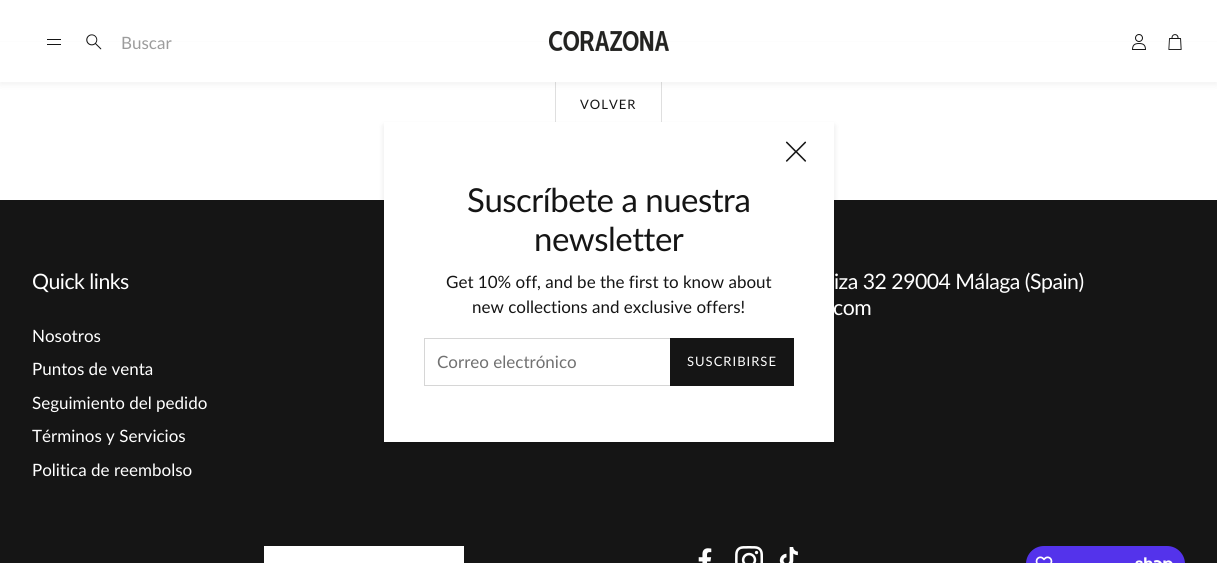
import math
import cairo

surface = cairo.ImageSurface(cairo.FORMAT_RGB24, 1217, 563)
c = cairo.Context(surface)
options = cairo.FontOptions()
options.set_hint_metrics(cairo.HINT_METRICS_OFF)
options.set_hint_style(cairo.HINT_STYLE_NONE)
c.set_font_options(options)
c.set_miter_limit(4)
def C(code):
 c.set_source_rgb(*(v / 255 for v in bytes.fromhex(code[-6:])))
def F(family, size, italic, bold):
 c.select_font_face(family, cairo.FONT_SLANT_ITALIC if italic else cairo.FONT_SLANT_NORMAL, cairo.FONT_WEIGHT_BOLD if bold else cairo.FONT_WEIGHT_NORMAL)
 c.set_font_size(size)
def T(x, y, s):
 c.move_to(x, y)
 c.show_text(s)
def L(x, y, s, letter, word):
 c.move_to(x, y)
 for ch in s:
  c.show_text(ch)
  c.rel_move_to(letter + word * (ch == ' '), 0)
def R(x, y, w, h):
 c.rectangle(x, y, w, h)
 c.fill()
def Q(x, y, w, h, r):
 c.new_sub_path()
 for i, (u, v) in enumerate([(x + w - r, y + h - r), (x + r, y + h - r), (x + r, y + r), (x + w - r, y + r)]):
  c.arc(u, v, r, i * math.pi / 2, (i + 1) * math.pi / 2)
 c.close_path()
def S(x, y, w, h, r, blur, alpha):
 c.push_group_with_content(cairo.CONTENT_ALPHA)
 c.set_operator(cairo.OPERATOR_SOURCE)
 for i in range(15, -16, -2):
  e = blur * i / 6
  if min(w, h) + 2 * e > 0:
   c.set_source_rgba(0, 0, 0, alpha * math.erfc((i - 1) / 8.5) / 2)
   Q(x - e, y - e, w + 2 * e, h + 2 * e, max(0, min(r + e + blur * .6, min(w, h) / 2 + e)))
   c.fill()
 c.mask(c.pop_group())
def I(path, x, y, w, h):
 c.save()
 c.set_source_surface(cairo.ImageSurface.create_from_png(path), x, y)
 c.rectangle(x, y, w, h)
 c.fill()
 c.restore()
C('ffffff')
c.paint()
c.rectangle(555.5,80.5,106,47)
C('dfdfdf')
c.set_line_width(1)
c.stroke()
C('000000')
S(0,45,1217,40,0,3,.05)
C('ffffff')
R(0,42,1217,40)
C('151515')
R(47,39,14,1)
R(47,44,14,1)
I('1.png',86,34,16,16)
F('Lato',17,0,0)
C('9c9c9c')
T(121,49,'Buscar')
I('2.png',549,31,120,20)
I('3.png',1132,34,14,16)
I('4.png',1168,34,14,16)
F('Lato',13,0,0)
C('151515')
L(580,109,'VOLVER',1,0)
R(0,200,1217,363)
C('000000')
S(384,126,450,320,0,3,.1)
C('ffffff')
R(384,122,450,320)
I('5.png',785,141,22,21)
F('Lato',33,0,0)
C('151515')
L(467,212,'Suscríbete a nuestra',-.5,0)
L(534,251,'newsletter',-.5,0)
F('Lato',17,0,0)
T(446,288,'Get 10% off, and be the first to know about')
T(472,313,'new collections and exclusive offers!')
C('d6d6d6')
R(424,338,246,1)
R(424,385,246,1)
R(424,338,1,48)
C('717171')
T(437,368,'Correo electrónico')
C('151515')
R(670,338,124,48)
F('Lato',13,0,0)
C('ffffff')
L(687,366,'SUSCRIBIRSE',1,0)
F('Lato',21.25,0,0)
L(32,289,'Quick links',-.5,0)
F('Lato',17,0,0)
T(32,342,'Nosotros')
T(32,375,'Puntos de venta')
T(32,409,'Seguimiento del pedido')
T(32,442,'Términos y Servicios')
T(32,476,'Politica de reembolso')
F('Lato',21.25,0,0)
L(834,289,'iza 32 29004 Málaga (Spain)',-.5,0)
L(833,315,'com',-.5,0)
R(264,546,200,17)
I('6.png',698,548,14,15)
I('7.png',735,546,28,17)
I('8.png',779,547,19,16)
C('5433eb')
Q(1026,546,159,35,18)
c.fill()
I('9.png',1035,556,18,7)
I('10.png',1135,557,38,6)
surface.write_to_png('o.png')
